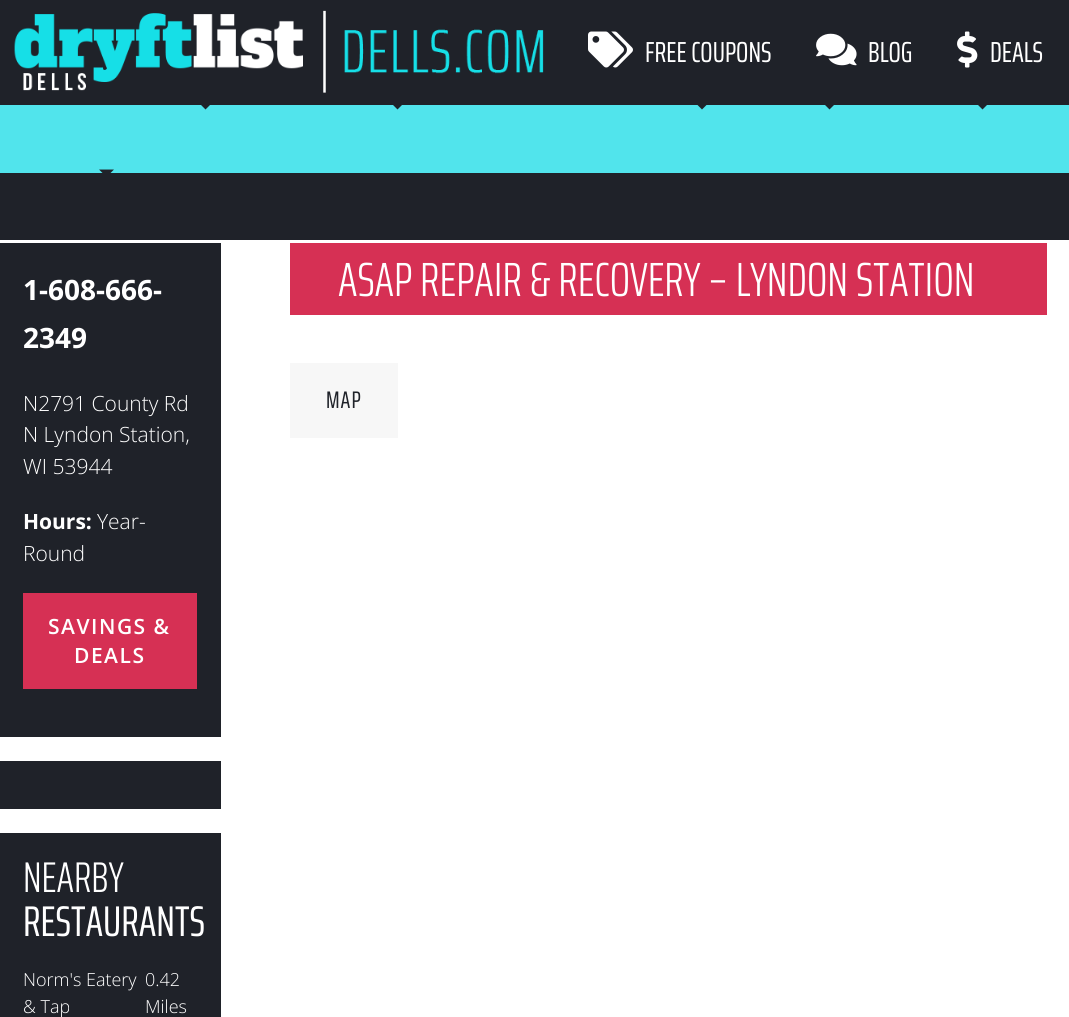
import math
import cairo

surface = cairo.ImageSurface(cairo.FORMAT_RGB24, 1069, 1017)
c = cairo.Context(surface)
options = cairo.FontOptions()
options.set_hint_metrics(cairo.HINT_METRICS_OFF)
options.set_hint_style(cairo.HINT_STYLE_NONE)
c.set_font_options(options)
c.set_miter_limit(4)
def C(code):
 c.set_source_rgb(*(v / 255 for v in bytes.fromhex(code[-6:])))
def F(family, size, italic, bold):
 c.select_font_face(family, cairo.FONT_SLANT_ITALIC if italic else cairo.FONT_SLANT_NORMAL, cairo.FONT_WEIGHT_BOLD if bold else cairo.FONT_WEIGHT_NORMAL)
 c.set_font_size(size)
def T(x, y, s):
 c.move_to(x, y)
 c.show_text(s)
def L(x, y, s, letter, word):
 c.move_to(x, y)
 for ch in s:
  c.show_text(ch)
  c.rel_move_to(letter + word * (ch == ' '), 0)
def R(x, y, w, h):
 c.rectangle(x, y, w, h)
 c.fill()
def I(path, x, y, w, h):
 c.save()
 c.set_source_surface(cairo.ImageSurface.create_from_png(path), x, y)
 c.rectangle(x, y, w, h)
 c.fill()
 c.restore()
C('ffffff')
c.paint()
C('1f2229')
R(0,0,1069,240)
I('1.png',14,10,530,83)
I('2.png',588,31,45,37)
F('Saira ExtraCondensed',29,0,0)
C('ffffff')
T(645,62,'FREE COUPONS')
I('3.png',816,33,41,33)
T(868,62,'BLOG')
I('4.png',957,31,21,37)
T(990,62,'DEALS')
C('51e4ec')
R(0,105,1069,68)
C('1f2229')
c.new_path()
c.move_to(198,102)
c.line_to(213,102)
c.line_to(205.5,109.5)
c.close_path()
c.fill()
c.new_path()
c.move_to(390,102)
c.line_to(405,102)
c.line_to(397.5,109.5)
c.close_path()
c.fill()
c.new_path()
c.move_to(694.5,102)
c.line_to(709.5,102)
c.line_to(702,109.5)
c.close_path()
c.fill()
c.new_path()
c.move_to(822,102)
c.line_to(837,102)
c.line_to(829.5,109.5)
c.close_path()
c.fill()
c.new_path()
c.move_to(975,102)
c.line_to(990,102)
c.line_to(982.5,109.5)
c.close_path()
c.fill()
c.new_path()
c.move_to(99,169.5)
c.line_to(114,169.5)
c.line_to(106.5,177)
c.close_path()
c.fill()
R(0,243,221,494)
F('Open Sans',28,0,1)
C('ffffff')
T(23,300,'1-608-666-')
T(23,348,'2349')
F('Open Sans Light',21,0,0)
T(23,411,'N2791 County Rd')
T(23,442,'N Lyndon Station,')
T(23,474,'WI 53944')
F('Open Sans',21,0,1)
T(23,529,'Hours:')
F('Open Sans Light',21,0,0)
T(97,529,'Year-')
T(23,561,'Round')
C('d63054')
R(23,593,174,96)
F('Open Sans SemiBold',21,0,0)
C('ffffff')
L(48,634,'SAVINGS &',1.5,0)
L(74,663,'DEALS',1.5,0)
C('1f2229')
R(0,761,221,48)
R(0,833,221,184)
F('Saira ExtraCondensed Light',43,0,0)
C('ffffff')
T(23,892,'NEARBY')
F('Saira ExtraCondensed',43,0,0)
T(23,936,'RESTAURANTS')
F('Open Sans Light',18,0,0)
T(23,986,'Norm\'s Eatery')
T(23,1013,'& Tap')
T(145,986,'0.42')
T(145,1013,'Miles')
C('d63054')
R(290,243,757,72)
F('Saira ExtraCondensed Light',48,0,0)
C('ffffff')
T(338,296,'ASAP REPAIR & RECOVERY – LYNDON STATION')
C('f7f7f7')
R(290,363,108,75)
F('Saira ExtraCondensed',24,0,0)
C('1f2229')
L(326,408,'MAP',1,0)
surface.write_to_png('o.png')
